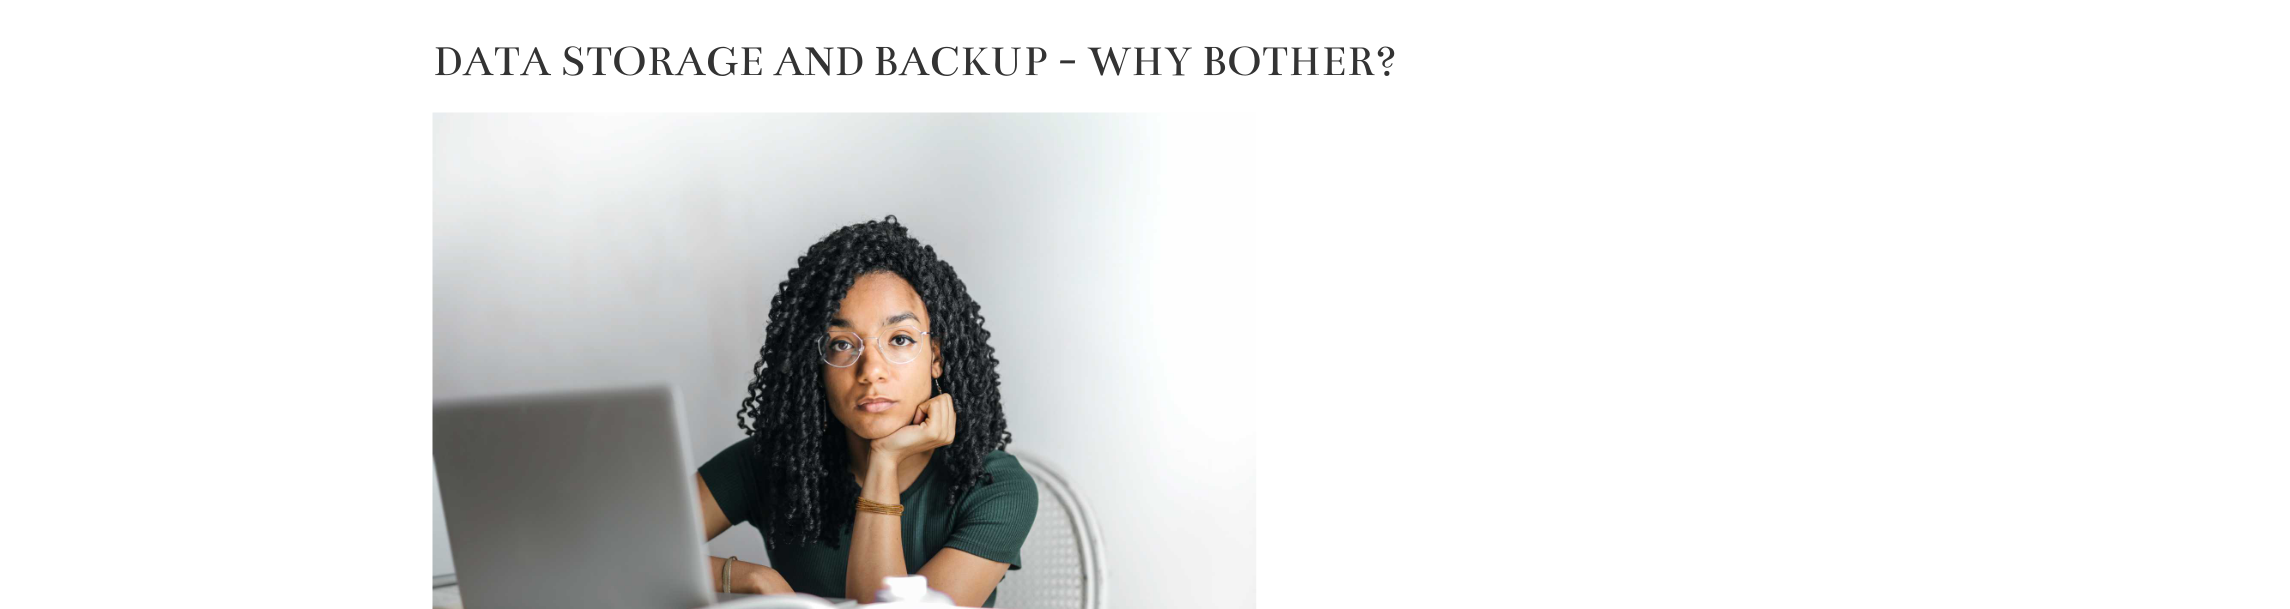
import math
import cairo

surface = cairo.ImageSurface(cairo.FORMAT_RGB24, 2290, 609)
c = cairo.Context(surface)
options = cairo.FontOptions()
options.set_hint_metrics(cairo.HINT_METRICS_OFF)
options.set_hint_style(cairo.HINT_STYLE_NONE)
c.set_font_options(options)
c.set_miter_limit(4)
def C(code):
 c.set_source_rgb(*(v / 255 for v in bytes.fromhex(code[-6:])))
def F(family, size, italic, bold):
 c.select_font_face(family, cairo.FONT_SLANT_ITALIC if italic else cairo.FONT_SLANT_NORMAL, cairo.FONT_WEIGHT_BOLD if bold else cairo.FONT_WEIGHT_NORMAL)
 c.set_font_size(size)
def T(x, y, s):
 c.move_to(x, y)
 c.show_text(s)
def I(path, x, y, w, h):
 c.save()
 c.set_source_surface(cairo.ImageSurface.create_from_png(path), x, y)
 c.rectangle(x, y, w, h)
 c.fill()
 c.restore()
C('ffffff')
c.paint()
F('Bentham',45,0,0)
C('333333')
T(433,75,'DATA STORAGE AND BACKUP - WHY BOTHER?')
I('1.png',432,112,825,497)
surface.write_to_png('o.png')
